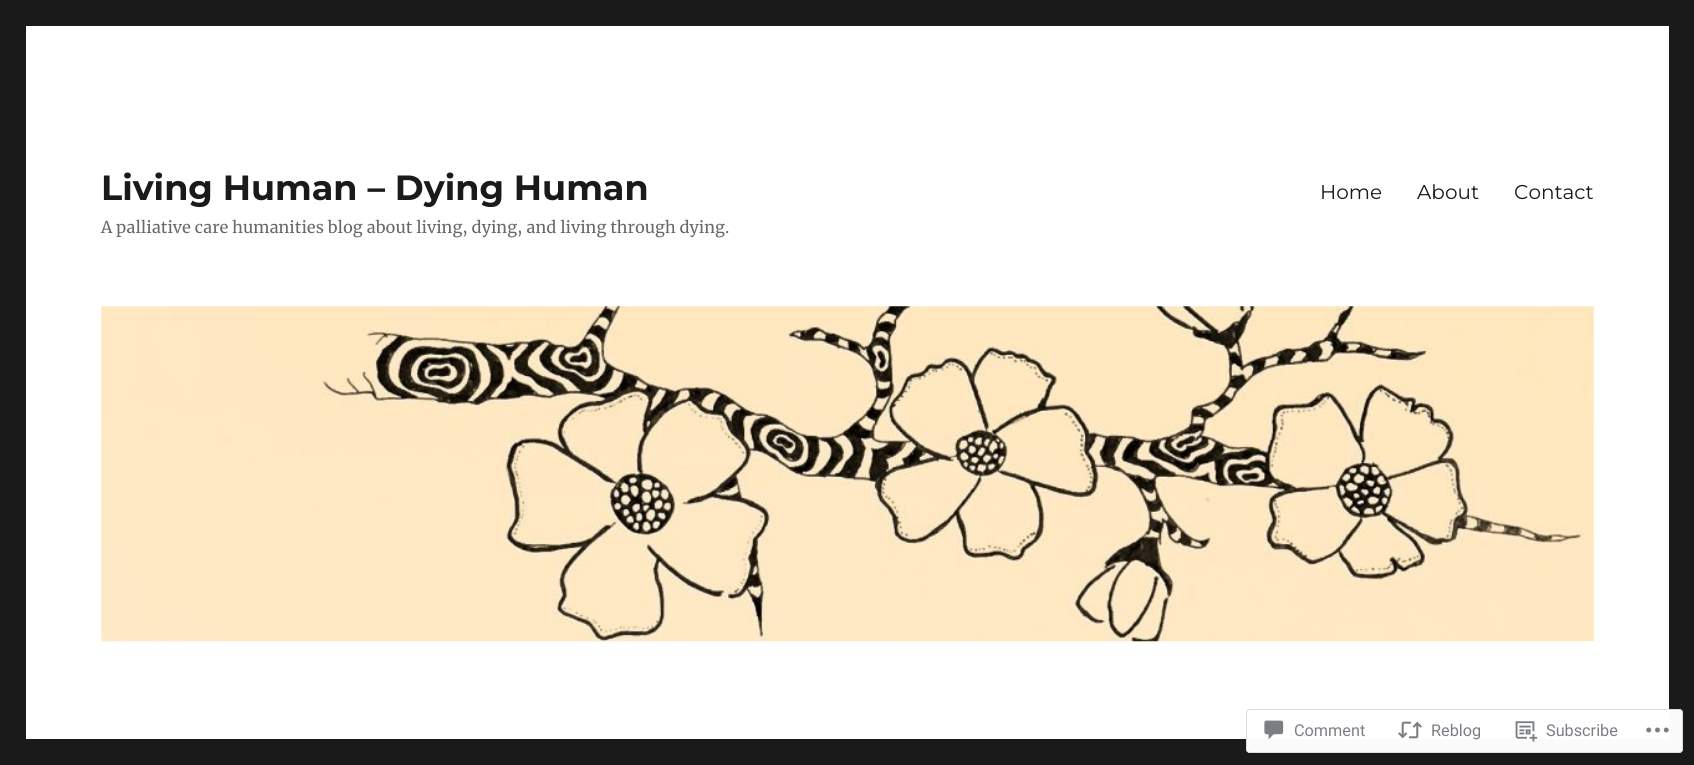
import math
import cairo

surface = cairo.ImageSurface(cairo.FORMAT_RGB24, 1694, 765)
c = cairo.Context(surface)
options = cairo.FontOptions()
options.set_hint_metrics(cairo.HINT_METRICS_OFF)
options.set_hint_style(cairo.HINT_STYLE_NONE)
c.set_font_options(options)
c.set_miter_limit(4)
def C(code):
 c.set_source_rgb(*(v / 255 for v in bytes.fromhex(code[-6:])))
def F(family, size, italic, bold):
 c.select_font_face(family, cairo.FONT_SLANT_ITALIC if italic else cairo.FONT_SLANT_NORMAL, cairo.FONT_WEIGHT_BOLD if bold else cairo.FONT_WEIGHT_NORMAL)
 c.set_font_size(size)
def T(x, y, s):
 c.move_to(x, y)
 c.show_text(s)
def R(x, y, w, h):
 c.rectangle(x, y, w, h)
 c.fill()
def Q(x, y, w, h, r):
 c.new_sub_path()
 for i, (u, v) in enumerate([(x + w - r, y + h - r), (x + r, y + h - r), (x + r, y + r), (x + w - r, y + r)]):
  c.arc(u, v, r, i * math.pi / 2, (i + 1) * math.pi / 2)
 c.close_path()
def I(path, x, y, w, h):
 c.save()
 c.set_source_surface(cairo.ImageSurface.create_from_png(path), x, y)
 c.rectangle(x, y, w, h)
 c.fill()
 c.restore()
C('1a1a1a')
c.paint()
C('ffffff')
R(26,26,1643,713)
F('Montserrat Thin',35,0,0)
C('1a1a1a')
T(101,200,'Living Human – Dying Human')
F('Merriweather',16.25,0,0)
C('686868')
T(101,233,'A palliative care humanities blog about living, dying, and living through dying.')
F('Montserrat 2 Thin',20,0,0)
C('1a1a1a')
T(1320,199,'Home')
T(1417,199,'About')
T(1514,199,'Contact')
I('1.png',101,306,1493,336)
c.set_source_rgba(1,1,1,0.98)
Q(1246,709,437,44,4)
c.fill()
Q(1246.5,709.5,436,43,3.5)
c.set_source_rgba(0.863,0.863,0.871,0.98)
c.set_line_width(1)
c.stroke()
I('2.png',1264,720,20,20)
F('Roboto',16.25,0,0)
C('7b7f85')
T(1294,736,'Comment')
I('3.png',1398,721,24,18)
T(1431,736,'Reblog')
I('4.png',1515,721,23,21)
T(1546,736,'Subscribe')
I('5.png',1646,727,23,6)
surface.write_to_png('o.png')
